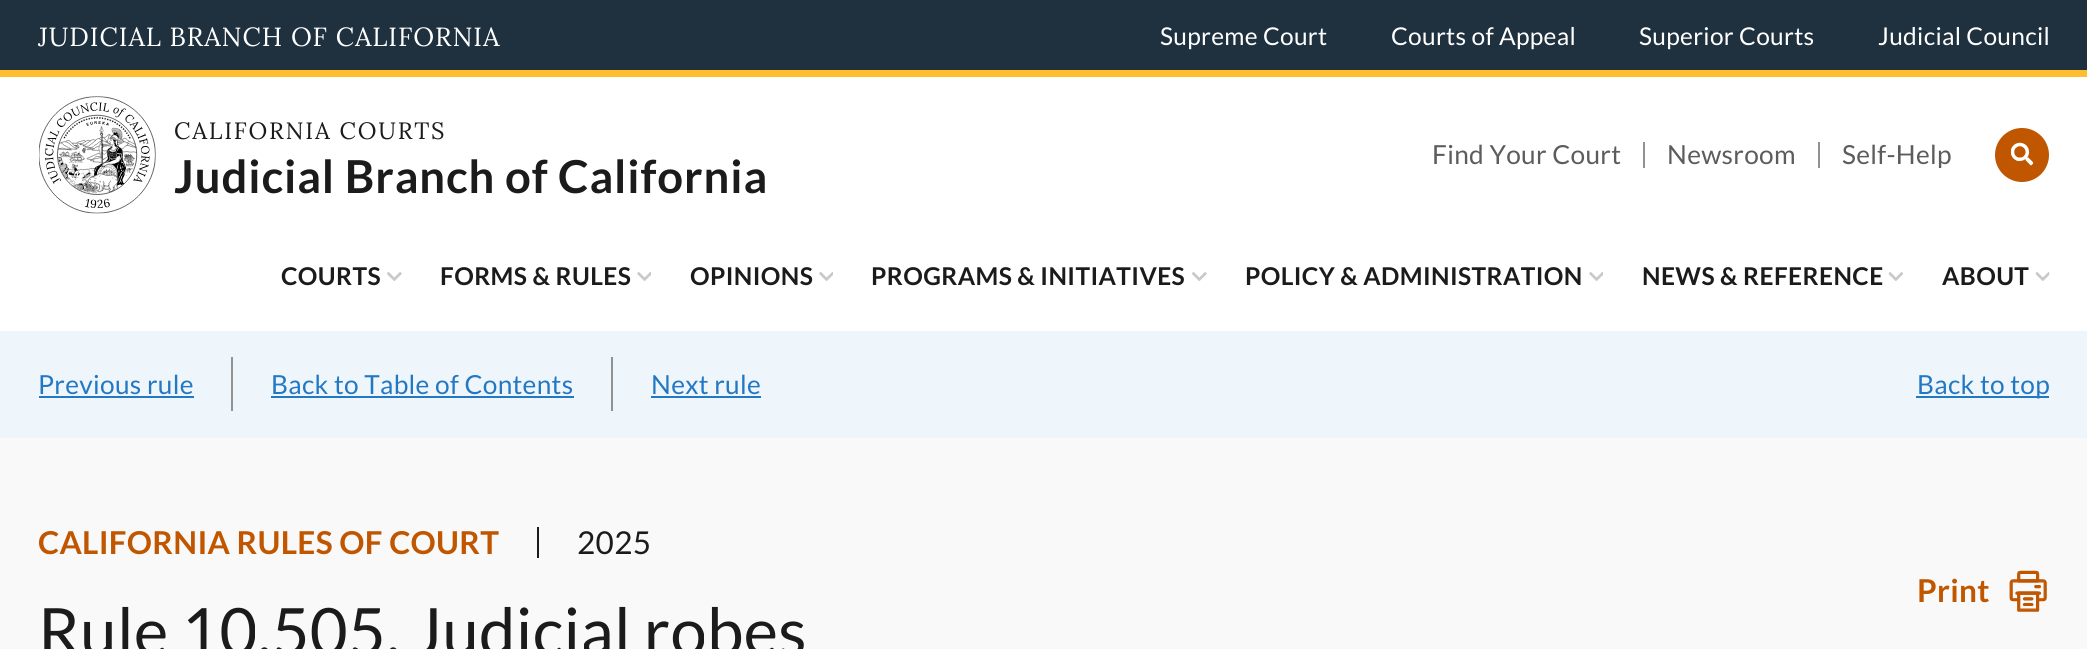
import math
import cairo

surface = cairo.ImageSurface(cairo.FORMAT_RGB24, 2087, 649)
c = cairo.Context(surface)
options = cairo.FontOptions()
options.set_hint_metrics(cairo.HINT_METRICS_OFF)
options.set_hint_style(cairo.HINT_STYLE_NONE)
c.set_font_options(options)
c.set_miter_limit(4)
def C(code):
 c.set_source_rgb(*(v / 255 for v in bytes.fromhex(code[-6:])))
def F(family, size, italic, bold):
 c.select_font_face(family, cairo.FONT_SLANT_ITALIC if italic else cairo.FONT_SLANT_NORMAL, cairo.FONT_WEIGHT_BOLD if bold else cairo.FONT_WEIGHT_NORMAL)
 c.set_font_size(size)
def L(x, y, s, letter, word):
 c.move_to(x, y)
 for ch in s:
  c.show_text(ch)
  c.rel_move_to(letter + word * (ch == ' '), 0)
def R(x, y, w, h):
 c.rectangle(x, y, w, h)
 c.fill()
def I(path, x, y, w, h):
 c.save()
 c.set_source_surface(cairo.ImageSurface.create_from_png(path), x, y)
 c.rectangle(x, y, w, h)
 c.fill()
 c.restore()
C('ffffff')
c.paint()
C('1f303e')
R(0,0,2087,70)
C('ffbe2e')
R(0,70,2087,7)
F('Lora',26.25,0,0)
C('ffffff')
L(38,46,'JUDICIAL BRANCH OF CALIFORNIA',.9,0)
F('Lato',24.5,0,0)
L(1160,45,'Supreme Court',.3,0)
L(1391,45,'Courts of Appeal',.3,0)
L(1639,45,'Superior Courts',.3,0)
L(1878,45,'Judicial Council',.3,0)
I('1.png',39,96,117,118)
F('Lora',23.6,0,0)
C('1b1b1b')
L(174,139,'CALIFORNIA COURTS',1.75,0)
F('Lato',45.4,0,1)
L(174,193,'Judicial Branch of California',.9,0)
F('Lato',26.25,0,0)
C('5c5c5c')
L(1432,164,'Find Your Court',.3,0)
C('919191')
R(1643,142,2,26)
C('5c5c5c')
L(1667,164,'Newsroom',.3,0)
C('919191')
R(1818,142,2,26)
c.save()
c.rectangle(1411,142,563,26)
c.clip()
C('5c5c5c')
L(1842,164,'Self-Help',.3,0)
c.restore()
C('c05600')
c.new_path()
c.arc(2022,155,27,0,2 * math.pi)
c.fill()
I('2.png',2011,142,23,24)
F('Lato',24.5,0,1)
C('1b1b1b')
L(281,285,'COURTS',.4,0)
I('3.png',387,272,15,9)
L(440,285,'FORMS & RULES',.4,0)
I('4.png',637,272,14,9)
L(690,285,'OPINIONS',.4,0)
I('4.png',819,272,14,9)
L(871,285,'PROGRAMS & INITIATIVES',.4,0)
I('3.png',1192,272,15,9)
L(1245,285,'POLICY & ADMINISTRATION',.4,0)
I('4.png',1589,272,14,9)
L(1642,285,'NEWS & REFERENCE',.4,0)
I('5.png',1888,272,15,9)
L(1942,285,'ABOUT',.4,0)
I('6.png',2035,272,15,9)
C('eff6fb')
R(0,331,2087,107)
F('Lato',26.25,0,0)
C('2378c3')
L(38,394,'Previous rule',.3,0)
R(39,396,155,2)
C('919191')
R(231,357,2,54)
C('2378c3')
L(271,394,'Back to Table of Contents',.3,0)
R(271,396,303,2)
C('919191')
R(611,357,2,54)
C('2378c3')
L(651,394,'Next rule',.3,0)
R(651,396,110,2)
R(1916,396,133,2)
L(1917,394,'Back to top',.3,0)
C('f9f9f9')
R(0,438,2087,211)
F('Lato',31.5,0,1)
C('c05600')
L(38,554,'CALIFORNIA RULES OF COURT',.3,0)
C('1b1b1b')
R(537,527,2,31)
F('Lato',31.5,0,0)
L(577,554,'2025',.3,0)
F('Lato',65.25,0,0)
L(38,655,'Rule 10.505. Judicial robes',.3,0)
F('Lato',31.5,0,1)
C('c05600')
L(1917,602,'Print',.3,0)
I('7.png',2009,570,38,42)
surface.write_to_png('o.png')
